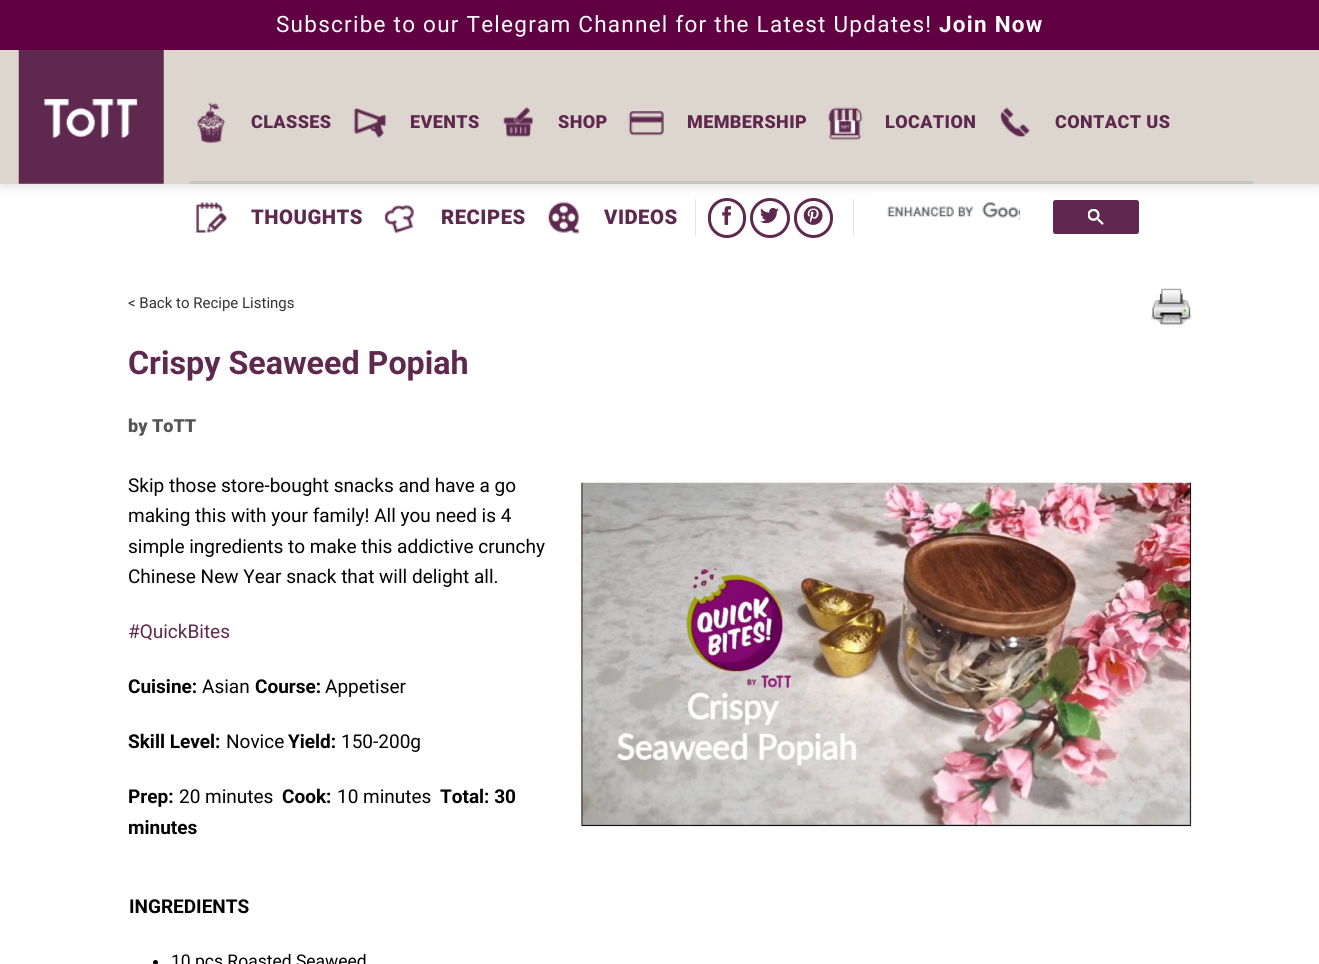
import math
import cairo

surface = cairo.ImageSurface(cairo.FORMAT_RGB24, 1319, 964)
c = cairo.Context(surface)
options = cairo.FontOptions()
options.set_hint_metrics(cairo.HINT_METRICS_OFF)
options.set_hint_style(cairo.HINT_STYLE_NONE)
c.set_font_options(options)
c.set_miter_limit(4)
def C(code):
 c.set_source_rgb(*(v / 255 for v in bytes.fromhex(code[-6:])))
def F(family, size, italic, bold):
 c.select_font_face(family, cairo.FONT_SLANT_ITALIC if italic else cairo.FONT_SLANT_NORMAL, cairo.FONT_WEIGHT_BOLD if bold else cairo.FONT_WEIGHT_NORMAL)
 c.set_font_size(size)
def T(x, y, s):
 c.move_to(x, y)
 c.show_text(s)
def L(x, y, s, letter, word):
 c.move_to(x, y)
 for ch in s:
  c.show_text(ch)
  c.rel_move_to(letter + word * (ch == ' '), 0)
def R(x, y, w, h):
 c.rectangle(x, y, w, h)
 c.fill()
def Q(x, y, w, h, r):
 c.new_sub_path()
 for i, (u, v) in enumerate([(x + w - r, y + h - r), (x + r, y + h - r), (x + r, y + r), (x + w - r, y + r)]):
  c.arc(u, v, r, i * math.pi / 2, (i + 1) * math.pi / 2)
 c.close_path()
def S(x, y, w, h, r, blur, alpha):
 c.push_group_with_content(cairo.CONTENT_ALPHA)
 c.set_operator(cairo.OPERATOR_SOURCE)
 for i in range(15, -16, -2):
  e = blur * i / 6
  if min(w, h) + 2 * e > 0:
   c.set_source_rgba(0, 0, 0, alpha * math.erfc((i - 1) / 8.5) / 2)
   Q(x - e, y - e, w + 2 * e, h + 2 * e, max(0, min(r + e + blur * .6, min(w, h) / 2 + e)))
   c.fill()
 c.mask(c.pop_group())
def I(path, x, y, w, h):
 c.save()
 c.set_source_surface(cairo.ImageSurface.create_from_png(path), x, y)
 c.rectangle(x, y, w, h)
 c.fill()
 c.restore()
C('ffffff')
c.paint()
C('000000')
S(1,1,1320,184,0,6,.15)
C('600043')
R(0,0,1319,50)
F('Roboto',22.5,0,0)
C('ffffff')
L(276,32,'Subscribe to our Telegram Channel for the Latest Updates!',1.25,0)
F('Roboto',22.5,0,1)
L(939,32,'Join Now',1.25,0)
C('ddd6ce')
R(0,50,1319,134)
I('1.png',18,50,146,134)
I('2.png',197,102,29,41)
F('Roboto Black',18,0,0)
C('5f294f')
L(251,128,'CLASSES',.4,0)
I('3.png',353,108,34,30)
L(410,128,'EVENTS',.4,0)
I('4.png',503,107,30,30)
L(558,128,'SHOP',.4,0)
I('5.png',628,111,36,25)
L(687,128,'MEMBERSHIP',.4,0)
I('6.png',828,107,35,34)
L(885,128,'LOCATION',.4,0)
I('7.png',1000,107,31,30)
L(1055,128,'CONTACT US',.4,0)
C('c5c4c3')
R(190,181,1063,3)
I('8.png',196,202,31,31)
F('Roboto Black',20.25,0,0)
C('5f294f')
L(251,224,'THOUGHTS',.5,0)
I('9.png',384,204,30,30)
L(441,224,'RECIPES',.5,0)
I('10.png',548,202,31,32)
L(604,224,'VIDEOS',.5,0)
C('e5e5e5')
R(695,199,1,37)
Q(709.5,199.5,35,37,17.5)
C('5f294f')
c.set_line_width(3)
c.stroke()
I('11.png',722,206,9,19)
c.arc(770,218,18.5,0,2 * math.pi)
c.stroke()
I('12.png',760,207,19,17)
Q(795.5,199.5,36,37,18)
c.stroke()
I('13.png',803,206,20,19)
C('e5e5e5')
R(853,199,1,37)
C('ffffff')
R(871,193,172,1)
I('14.png',887,202,133,19)
C('5f294f')
Q(1053.5,200.5,85,33,2)
c.fill_preserve()
c.set_line_width(1)
c.stroke()
I('15.png',1088,209,16,16)
F('Roboto',15,0,0)
C('333333')
T(128,308,'< Back to Recipe Listings')
F('Roboto',32.25,0,1)
C('5f294f')
T(128,374,'Crispy Seaweed Popiah')
F('Roboto Black',18,0,0)
C('555555')
T(128,432,'by ToTT')
I('16.png',1151,288,41,38)
F('Roboto',19,0,0)
C('000000')
T(128,492,'Skip those store-bought snacks and have a go')
T(128,522,'making this with your family! All you need is 4')
T(128,553,'simple ingredients to make this addictive crunchy')
T(128,583,'Chinese New Year snack that will delight all.')
C('5f294f')
T(128,638,'#QuickBites')
F('Roboto',19,0,1)
C('000000')
T(128,693,'Cuisine:')
F('Roboto',19,0,0)
T(202,693,'Asian')
F('Roboto',19,0,1)
T(255,693,'Course:')
F('Roboto',19,0,0)
T(325,693,'Appetiser')
F('Roboto',19,0,1)
T(128,748,'Skill Level:')
F('Roboto',19,0,0)
T(226,748,'Novice')
F('Roboto',19,0,1)
T(288,748,'Yield:')
F('Roboto',19,0,0)
T(341,748,'150-200g')
F('Roboto',19,0,1)
T(128,803,'Prep:')
F('Roboto',19,0,0)
T(179,803,'20 minutes')
F('Roboto',19,0,1)
T(282,803,'Cook:')
F('Roboto',19,0,0)
T(337,803,'10 minutes')
F('Roboto',19,0,1)
T(440,803,'Total: 30')
T(128,834,'minutes')
I('17.png',581,482,611,345)
T(129,913,'INGREDIENTS')
c.new_path()
c.arc(155.5,962.5,2.5,0,2 * math.pi)
c.fill()
F('Roboto',17.5,0,0)
T(171,967,'10 pcs Roasted Seaweed')
surface.write_to_png('o.png')
